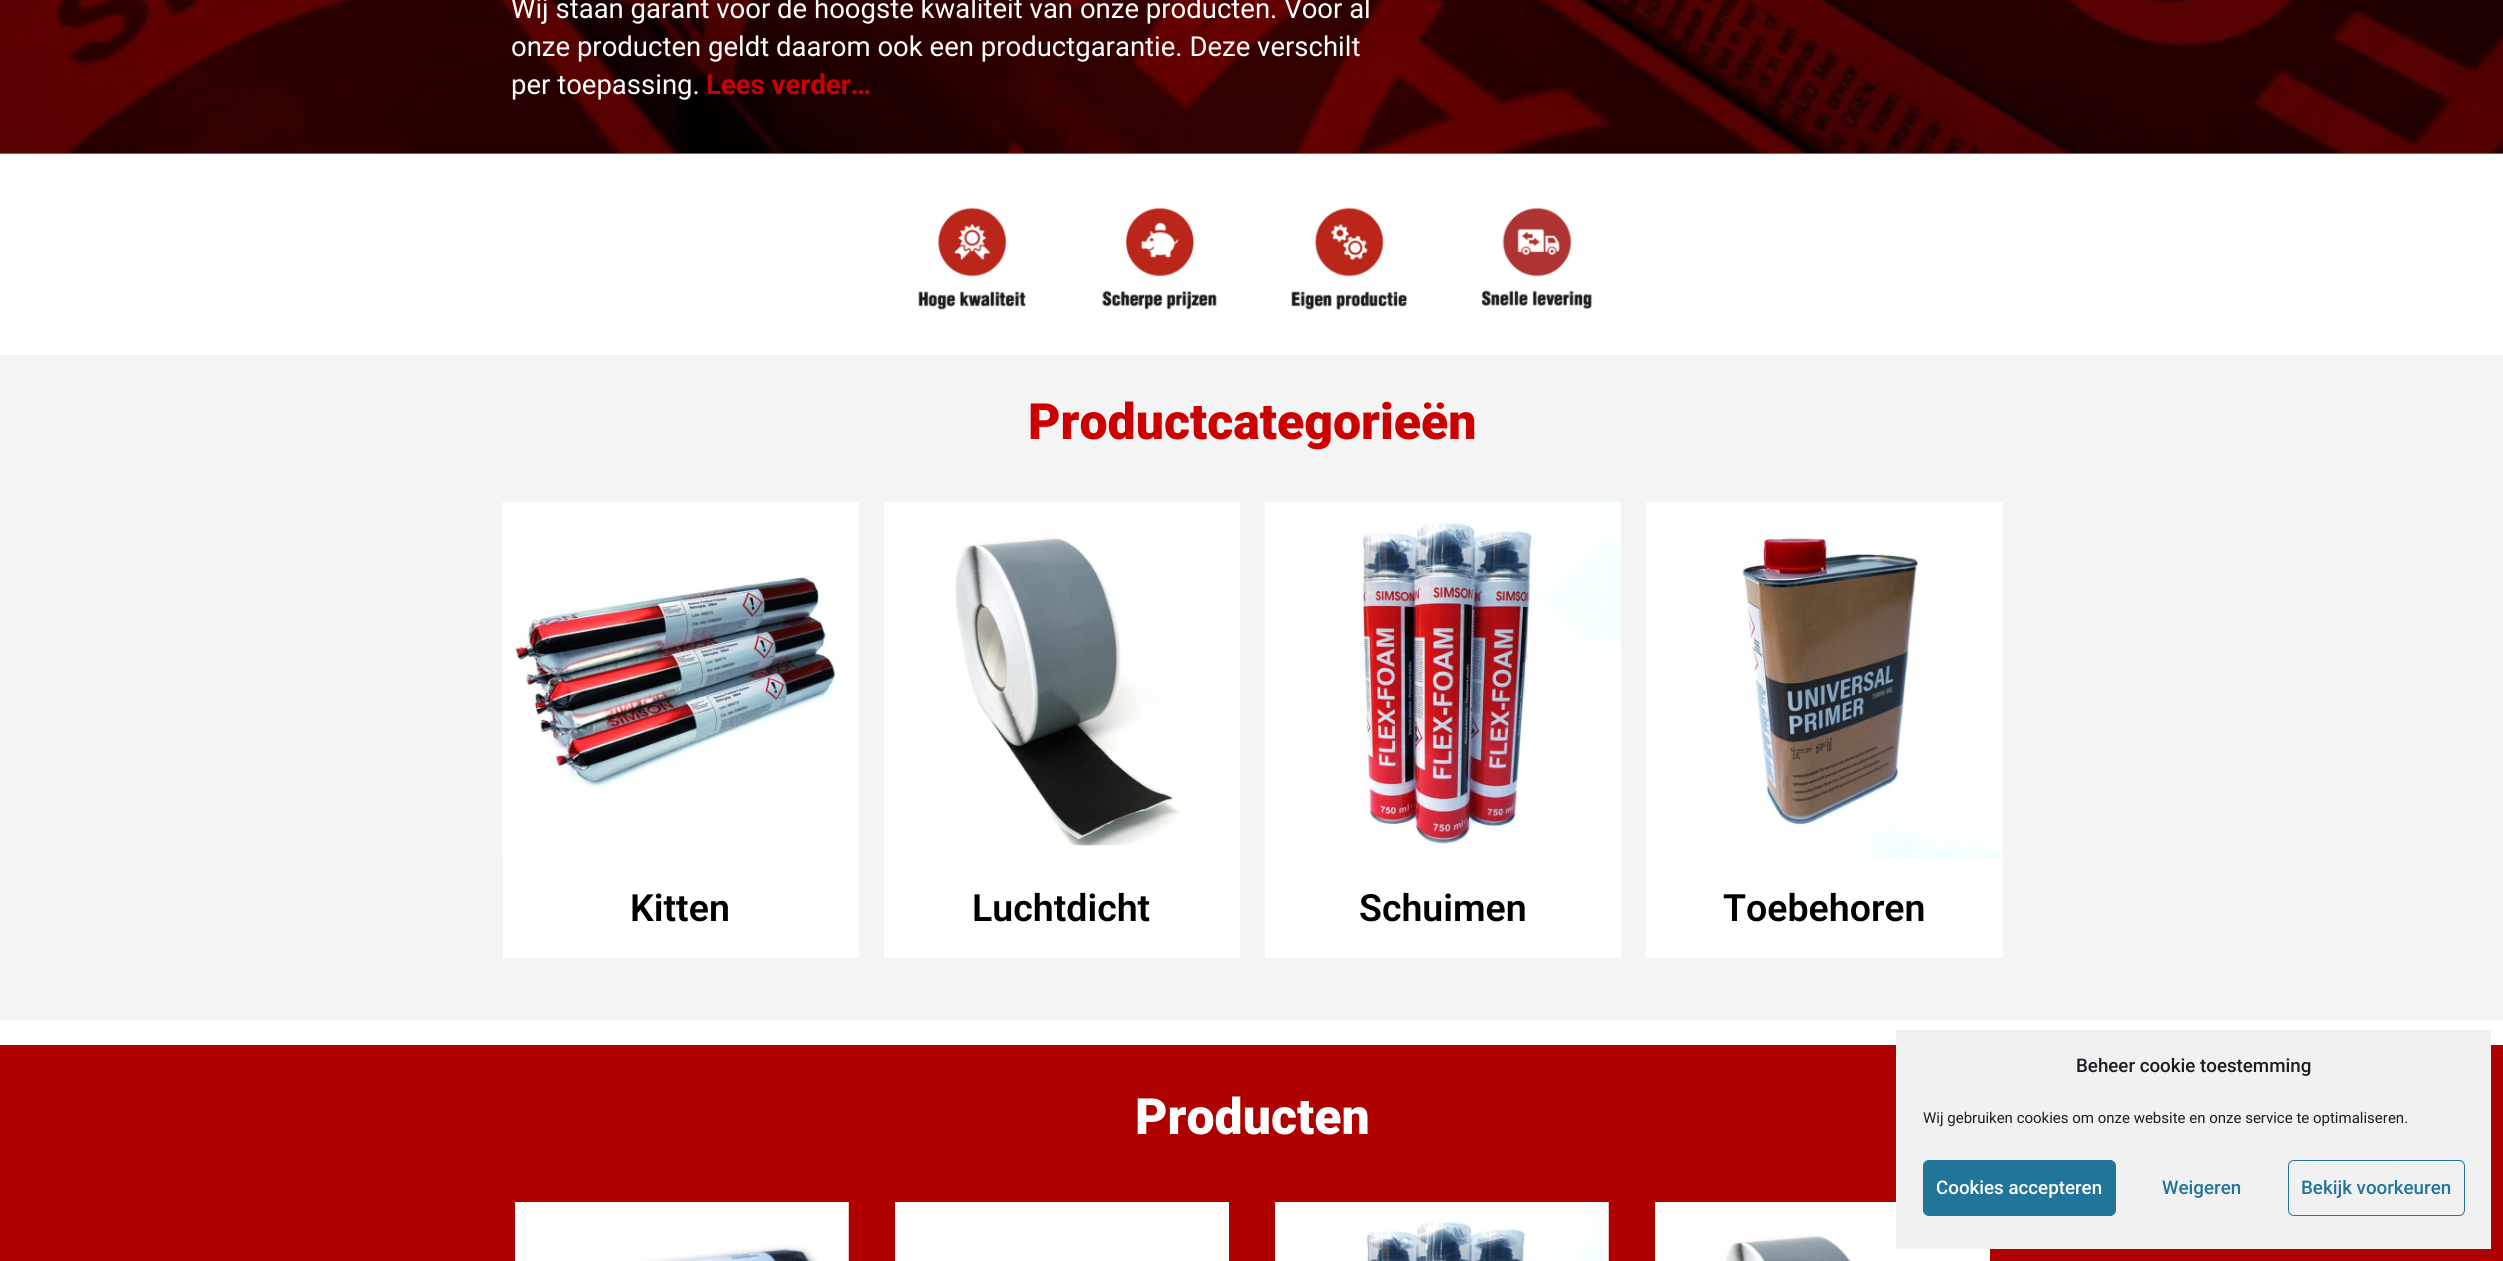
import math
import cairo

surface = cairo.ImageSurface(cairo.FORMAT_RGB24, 2503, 1261)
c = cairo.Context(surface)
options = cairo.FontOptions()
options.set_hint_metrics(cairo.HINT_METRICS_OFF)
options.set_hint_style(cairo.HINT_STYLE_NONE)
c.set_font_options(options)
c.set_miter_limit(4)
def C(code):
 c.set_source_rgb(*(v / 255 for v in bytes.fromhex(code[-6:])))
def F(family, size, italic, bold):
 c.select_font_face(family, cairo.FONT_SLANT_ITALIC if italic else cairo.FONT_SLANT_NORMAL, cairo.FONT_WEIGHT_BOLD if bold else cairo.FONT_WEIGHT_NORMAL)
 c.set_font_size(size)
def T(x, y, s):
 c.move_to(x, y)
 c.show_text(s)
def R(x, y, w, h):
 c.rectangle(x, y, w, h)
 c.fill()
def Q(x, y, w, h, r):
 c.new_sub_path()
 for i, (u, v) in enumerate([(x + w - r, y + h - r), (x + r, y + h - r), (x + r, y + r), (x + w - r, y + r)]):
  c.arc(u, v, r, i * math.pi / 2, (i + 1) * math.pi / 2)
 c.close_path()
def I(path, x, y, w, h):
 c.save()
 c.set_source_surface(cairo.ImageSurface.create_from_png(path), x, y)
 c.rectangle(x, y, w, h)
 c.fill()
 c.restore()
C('ffffff')
c.paint()
C('8a8a8a')
R(0,153,2503,1)
I('1.png',0,0,2503,154)
F('Roboto',27.5,0,0)
C('ffffff')
T(511,18,'Wij staan garant voor de hoogste kwaliteit van onze producten. Voor al')
T(511,56,'onze producten geldt daarom ook een productgarantie. Deze verschilt')
T(511,94,'per toepassing.')
F('Roboto',27.5,0,1)
C('cc0000')
T(706,94,'Lees verder…')
I('2.png',918,207,675,103)
C('f4f4f4')
R(0,355,2503,665)
F('Roboto Black',50,0,0)
C('cc0000')
T(1028,439,'Productcategorieën')
C('ffffff')
R(503,503,356,455)
I('3.png',502,502,357,356)
F('Roboto SemiBold',37.5,0,0)
C('000000')
T(630,921,'Kitten')
C('ffffff')
R(884,846,356,112)
I('4.png',884,502,356,344)
C('000000')
T(972,921,'Luchtdicht')
C('ffffff')
R(1265,844,356,114)
I('5.png',1265,502,356,342)
C('000000')
T(1359,921,'Schuimen')
C('ffffff')
R(1646,503,357,455)
I('6.png',1646,502,357,357)
C('000000')
T(1723,921,'Toebehoren')
C('af0000')
R(0,1045,2503,216)
F('Roboto Black',50,0,0)
C('ffffff')
T(1135,1134,'Producten')
I('7.png',515,1202,334,59)
R(895,1203,334,58)
I('8.png',895,1202,334,1)
I('9.png',1275,1202,334,59)
I('10.png',1655,1202,335,59)
C('f1f1f1')
R(1896,1030,595,219)
F('Roboto Medium',18.75,0,0)
C('191e23')
T(2076,1072,'Beheer cookie toestemming')
F('Roboto',15,0,0)
T(1923,1123,'Wij gebruiken cookies om onze website en onze service te optimaliseren.')
C('21759b')
Q(1923.5,1160.5,192,55,5.5)
c.fill_preserve()
c.set_line_width(1)
c.stroke()
F('Roboto Medium',18.75,0,0)
C('ffffff')
T(1936,1194,'Cookies accepteren')
C('21759b')
T(2162,1194,'Weigeren')
Q(2288.5,1160.5,176,55,5.5)
c.stroke()
T(2301,1194,'Bekijk voorkeuren')
surface.write_to_png('o.png')
